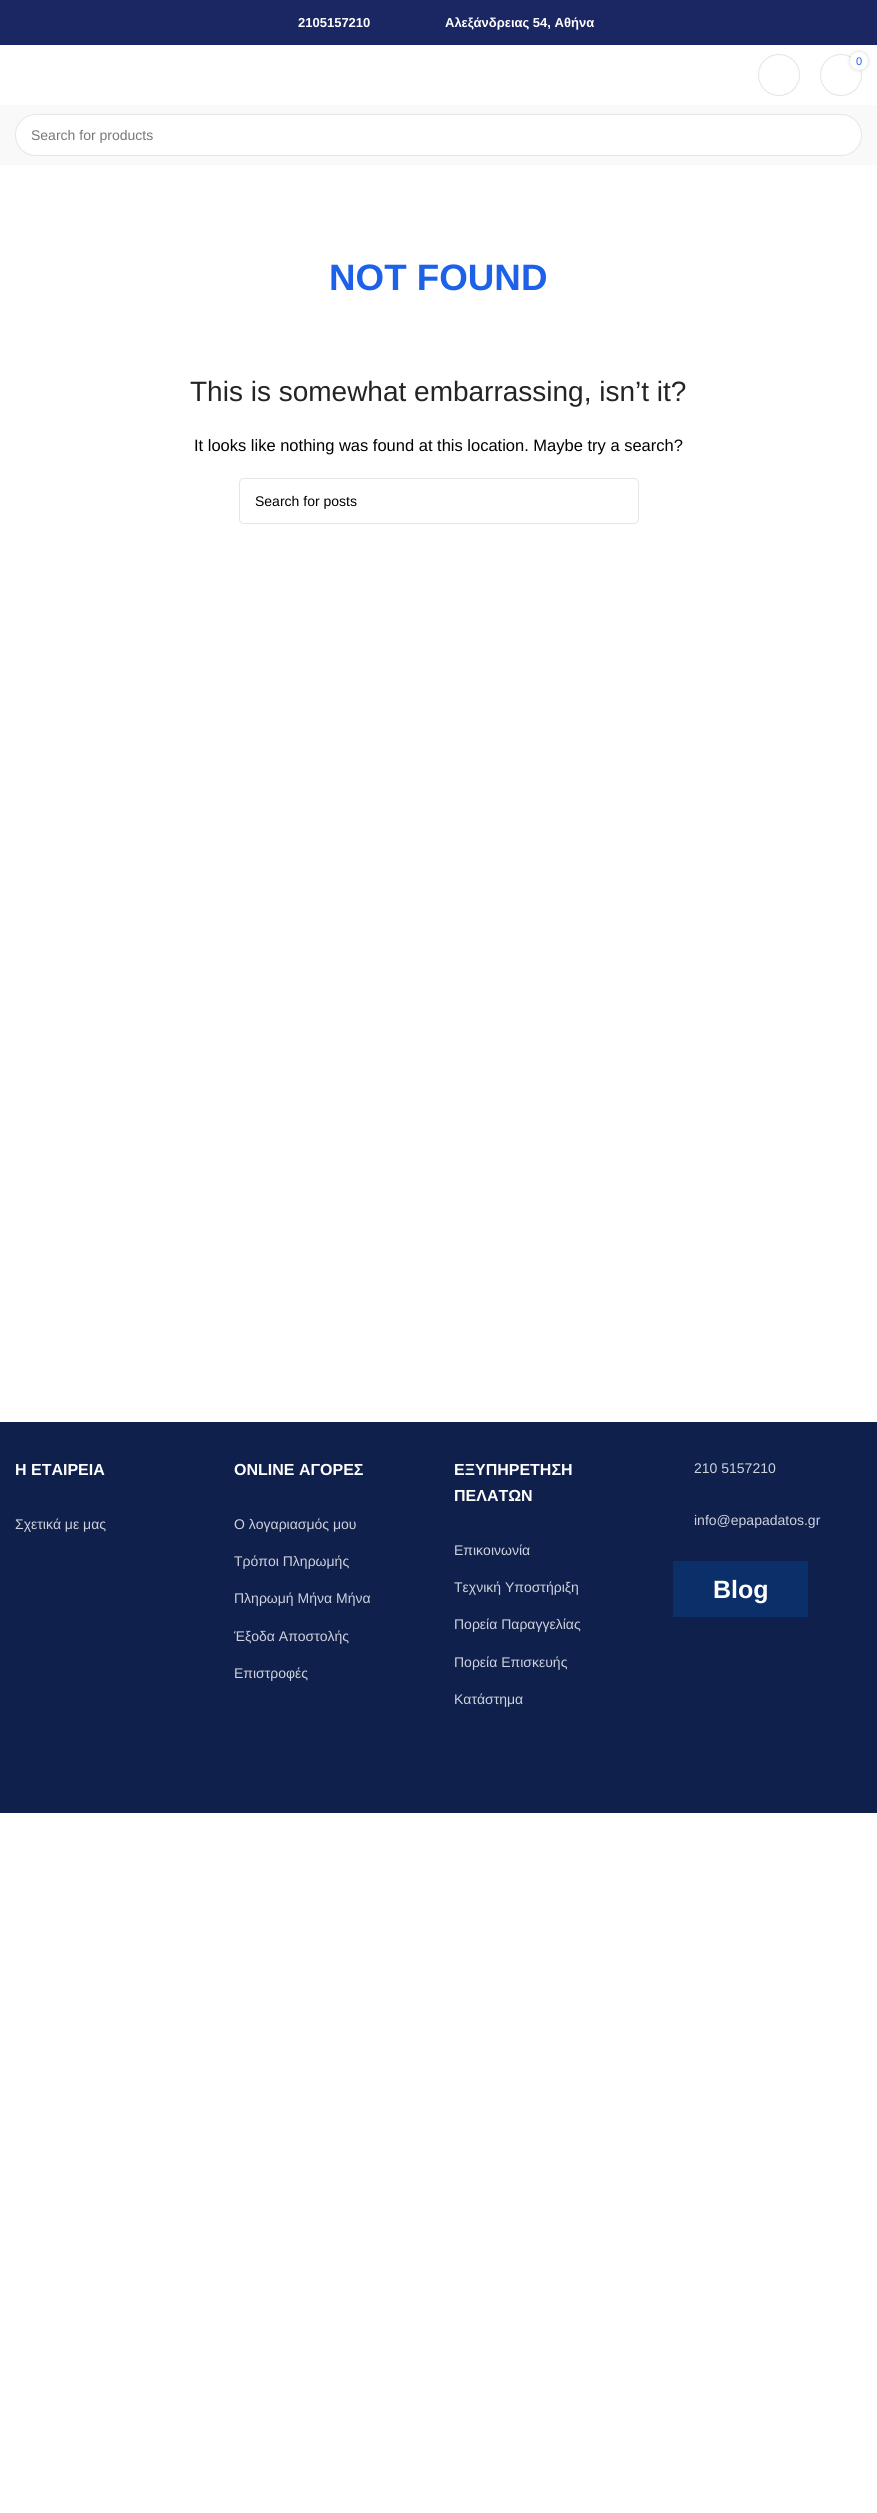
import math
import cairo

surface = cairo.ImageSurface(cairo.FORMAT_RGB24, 877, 2513)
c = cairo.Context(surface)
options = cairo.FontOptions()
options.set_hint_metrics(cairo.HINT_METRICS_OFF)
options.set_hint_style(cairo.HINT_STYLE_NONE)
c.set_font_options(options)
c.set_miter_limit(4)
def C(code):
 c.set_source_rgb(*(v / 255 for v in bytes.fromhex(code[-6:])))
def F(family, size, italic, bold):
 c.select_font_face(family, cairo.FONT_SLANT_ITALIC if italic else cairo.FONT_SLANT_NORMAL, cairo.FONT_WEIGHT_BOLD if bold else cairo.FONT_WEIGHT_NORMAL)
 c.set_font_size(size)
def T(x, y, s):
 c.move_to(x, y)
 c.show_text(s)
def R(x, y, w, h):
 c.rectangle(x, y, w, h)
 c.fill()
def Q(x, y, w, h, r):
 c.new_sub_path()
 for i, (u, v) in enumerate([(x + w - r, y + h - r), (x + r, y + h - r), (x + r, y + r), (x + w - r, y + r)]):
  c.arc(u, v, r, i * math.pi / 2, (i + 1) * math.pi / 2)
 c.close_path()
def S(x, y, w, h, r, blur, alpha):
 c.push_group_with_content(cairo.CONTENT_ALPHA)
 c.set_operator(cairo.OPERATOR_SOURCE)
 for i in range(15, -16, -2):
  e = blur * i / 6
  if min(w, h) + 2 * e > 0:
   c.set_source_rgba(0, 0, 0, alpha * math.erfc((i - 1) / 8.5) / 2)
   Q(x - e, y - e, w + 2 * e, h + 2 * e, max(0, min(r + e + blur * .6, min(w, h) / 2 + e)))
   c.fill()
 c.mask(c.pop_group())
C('ffffff')
c.paint()
C('1b2763')
R(0,0,877,45)
F('Liberation Sans',13,0,1)
C('ffffff')
T(298,27,'2105157210')
T(445,27,'Αλεξάνδρειας 54, Αθήνα')
c.new_path()
c.arc(779,75,20.5,0,2 * math.pi)
C('e4e4e4')
c.set_line_width(1)
c.stroke()
c.arc(841,75,20.5,0,2 * math.pi)
c.stroke()
C('000000')
S(850,52,18,18,9,2,.17)
C('ffffff')
c.arc(859,61,9,0,2 * math.pi)
c.fill()
F('Liberation Sans',11,0,0)
C('1c61e7')
T(856,65,'0')
C('f9f9f9')
R(0,105,877,60)
C('ffffff')
Q(15,114,847,42,21)
c.fill()
Q(15.5,114.5,846,41,20.5)
c.set_source_rgba(0,0,0,0.1)
c.stroke()
F('Liberation Sans',14,0,0)
C('777777')
T(31,140,'Search for products')
F('Liberation Sans',36.75,0,1)
C('1c61e7')
T(329,290,'NOT FOUND')
F('Liberation Sans',28,0,0)
C('242424')
T(190,401,'This is somewhat embarrassing, isn’t it?')
F('Liberation Sans',16.5,0,0)
C('000000')
T(194,451,'It looks like nothing was found at this location. Maybe try a search?')
Q(239.5,478.5,399,45,4.5)
C('e6e6e6')
c.stroke()
F('Liberation Sans',14,0,0)
C('000000')
T(255,506,'Search for posts')
C('0f204c')
R(0,1422,877,391)
F('Liberation Sans',16,0,1)
C('ffffff')
T(15,1475,'Η ΕΤΑΙΡΕΙΑ')
F('Liberation Sans',14,0,0)
C('cfd2db')
T(15,1529,'Σχετικά με μας')
F('Liberation Sans',16,0,1)
C('ffffff')
T(234,1475,'ONLINE ΑΓΟΡΕΣ')
F('Liberation Sans',14,0,0)
C('cfd2db')
T(234,1529,'Ο λογαριασμός μου')
T(234,1566,'Τρόποι Πληρωμής')
T(234,1603,'Πληρωμή Μήνα Μήνα')
T(234,1641,'Έξοδα Αποστολής')
T(234,1678,'Επιστροφές')
F('Liberation Sans',16,0,1)
C('ffffff')
T(454,1475,'ΕΞΥΠΗΡΕΤΗΣΗ')
T(454,1501,'ΠΕΛΑΤΩΝ')
F('Liberation Sans',14,0,0)
C('cfd2db')
T(454,1555,'Επικοινωνία')
T(454,1592,'Τεχνική Υποστήριξη')
T(454,1629,'Πορεία Παραγγελίας')
T(454,1667,'Πορεία Επισκευής')
T(454,1704,'Κατάστημα')
T(694,1473,'210 5157210')
T(694,1525,'info@epapadatos.gr')
C('0b2f69')
R(673,1561,135,56)
F('Liberation Sans',25,0,1)
C('ffffff')
T(713,1598,'Blog')
surface.write_to_png('o.png')
